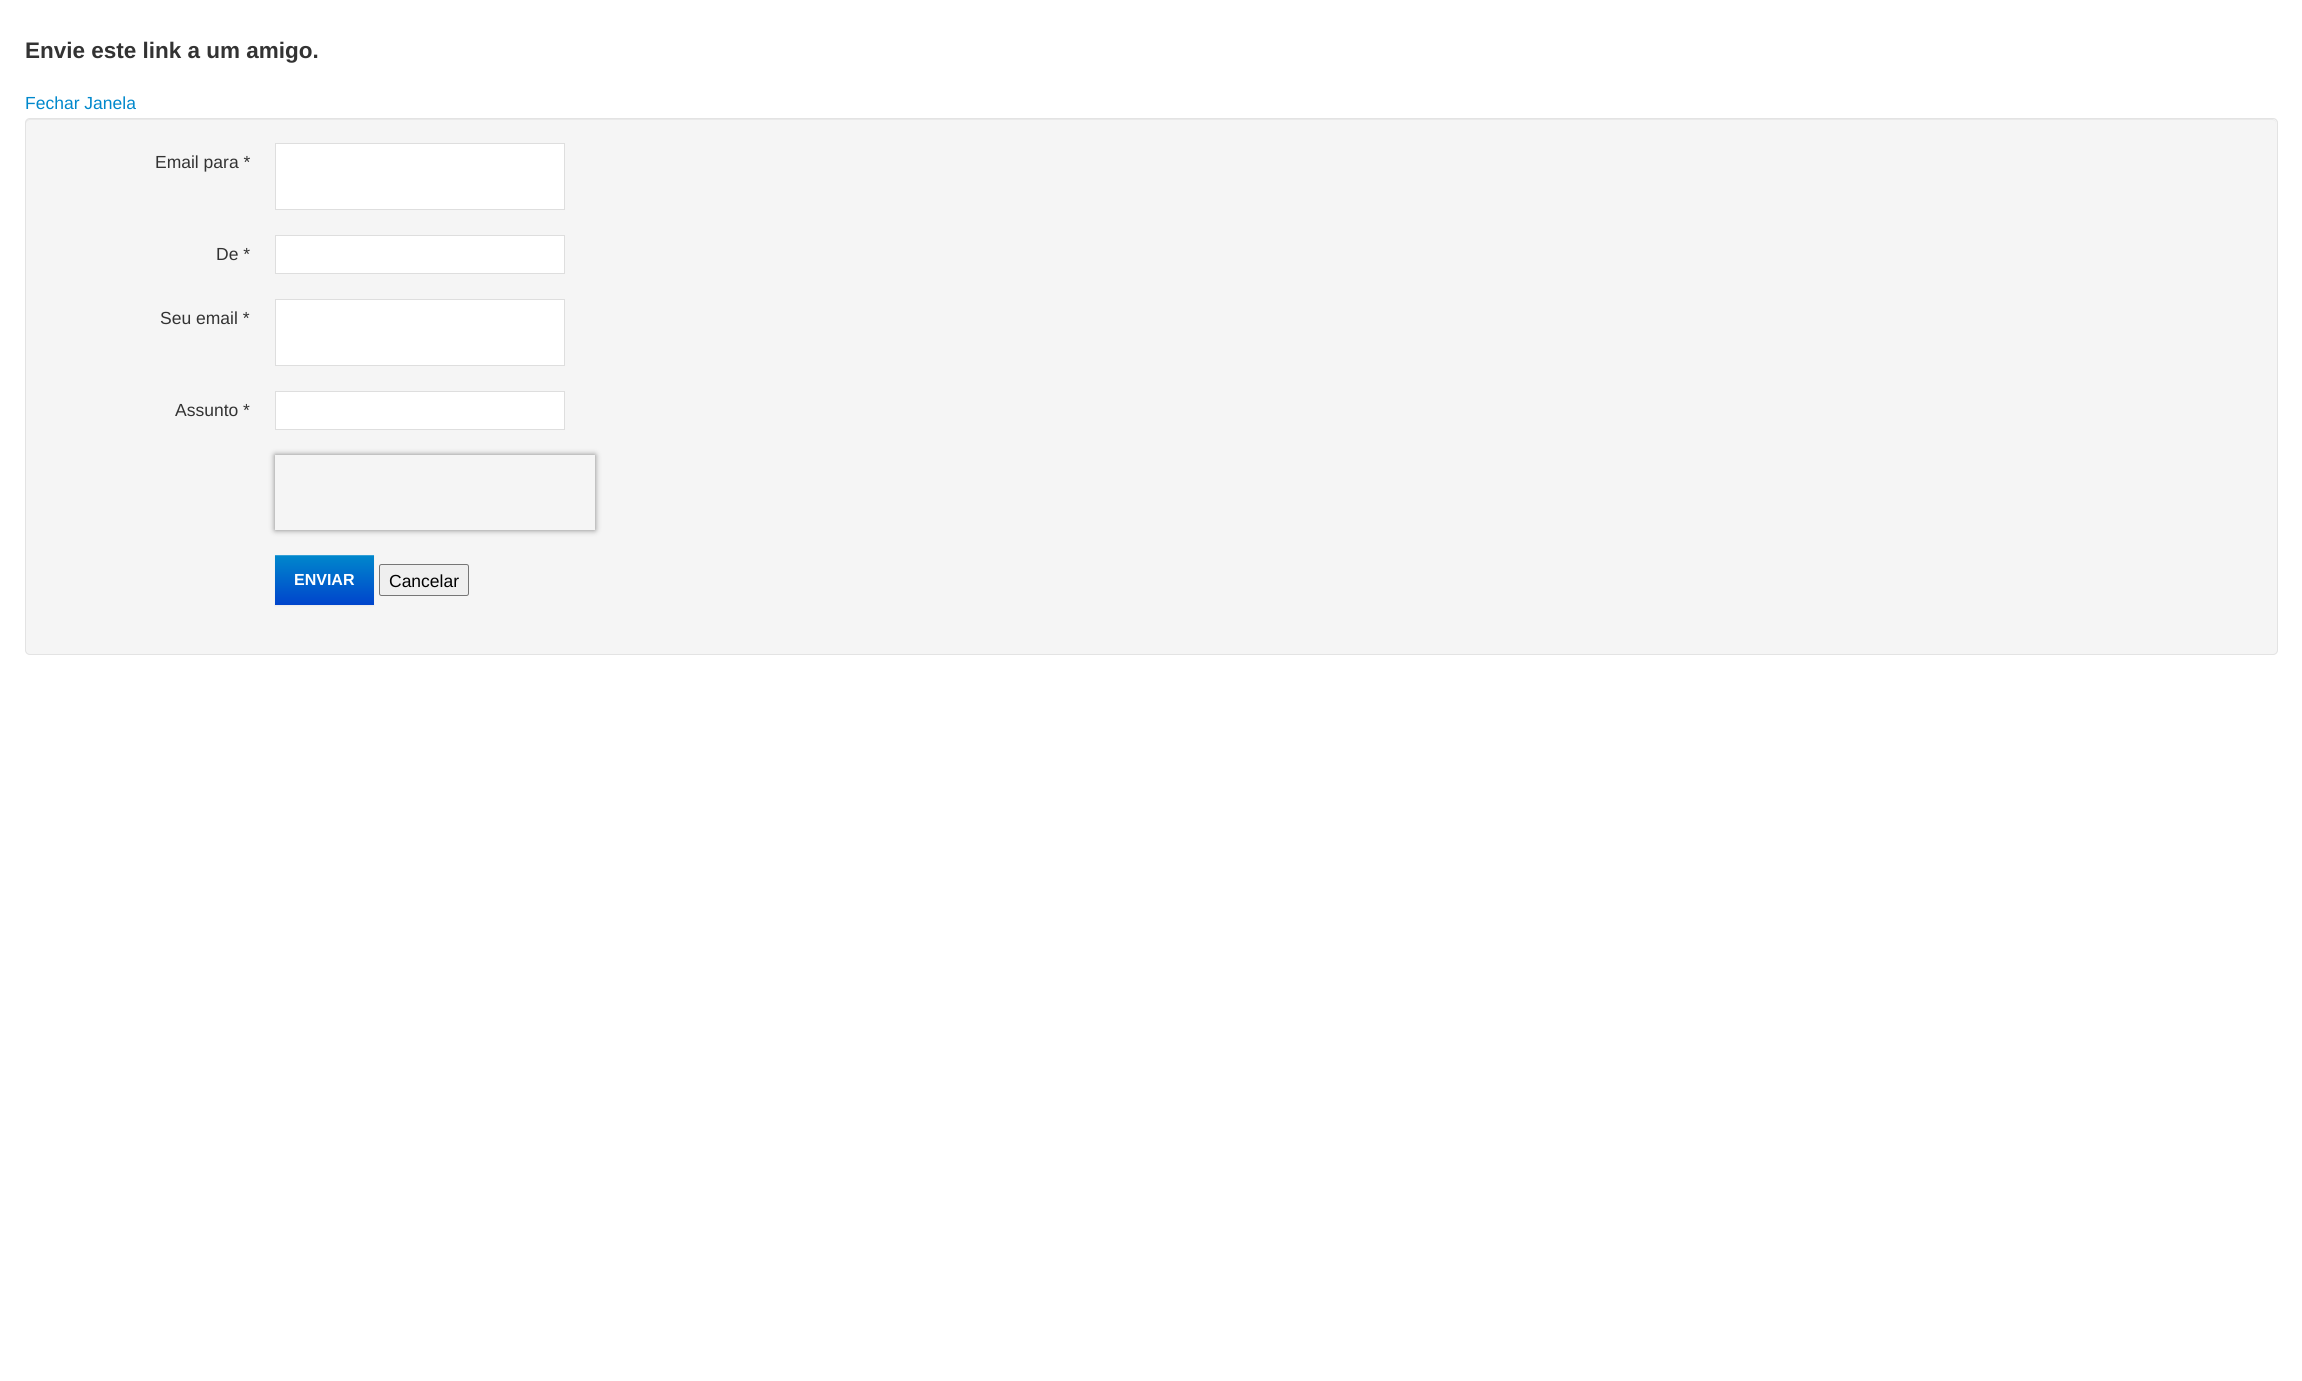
import math
import cairo

surface = cairo.ImageSurface(cairo.FORMAT_RGB24, 2302, 1381)
c = cairo.Context(surface)
options = cairo.FontOptions()
options.set_hint_metrics(cairo.HINT_METRICS_OFF)
options.set_hint_style(cairo.HINT_STYLE_NONE)
c.set_font_options(options)
c.set_miter_limit(4)
def C(code):
 c.set_source_rgb(*(v / 255 for v in bytes.fromhex(code[-6:])))
def F(family, size, italic, bold):
 c.select_font_face(family, cairo.FONT_SLANT_ITALIC if italic else cairo.FONT_SLANT_NORMAL, cairo.FONT_WEIGHT_BOLD if bold else cairo.FONT_WEIGHT_NORMAL)
 c.set_font_size(size)
def T(x, y, s):
 c.move_to(x, y)
 c.show_text(s)
def R(x, y, w, h):
 c.rectangle(x, y, w, h)
 c.fill()
def Q(x, y, w, h, r):
 c.new_sub_path()
 for i, (u, v) in enumerate([(x + w - r, y + h - r), (x + r, y + h - r), (x + r, y + r), (x + w - r, y + r)]):
  c.arc(u, v, r, i * math.pi / 2, (i + 1) * math.pi / 2)
 c.close_path()
def S(x, y, w, h, r, blur, alpha):
 c.push_group_with_content(cairo.CONTENT_ALPHA)
 c.set_operator(cairo.OPERATOR_SOURCE)
 for i in range(15, -16, -2):
  e = blur * i / 6
  if min(w, h) + 2 * e > 0:
   c.set_source_rgba(0, 0, 0, alpha * math.erfc((i - 1) / 8.5) / 2)
   Q(x - e, y - e, w + 2 * e, h + 2 * e, max(0, min(r + e + blur * .6, min(w, h) / 2 + e)))
   c.fill()
 c.mask(c.pop_group())
C('ffffff')
c.paint()
F('Liberation Sans',22.5,0,1)
C('333333')
T(25,58,'Envie este link a um amigo.')
F('Liberation Sans',17.5,0,0)
C('0088cc')
T(25,109,'Fechar Janela')
C('f5f5f5')
Q(25,118,2253,537,5)
c.fill()
C('e9e9e9')
c.new_path()
c.move_to(30,120)
c.line_to(2272,120)
c.curve_to(2275,120,2276,122,2276,124)
c.line_to(2276,123)
c.curve_to(2276,121,2274,119,2272,119)
c.line_to(30,119)
c.curve_to(28,119,26,121,26,123)
c.line_to(26,124)
c.curve_to(26,122,28,120,30,120)
c.close_path()
c.fill()
Q(25.5,118.5,2252,536,4.5)
C('e3e3e3')
c.set_line_width(1)
c.stroke()
C('333333')
T(155,168,'Email para *')
C('ffffff')
c.rectangle(275.5,143.5,289,66)
c.fill_preserve()
C('dedede')
c.stroke()
C('333333')
T(216,260,'De *')
C('ffffff')
c.rectangle(275.5,235.5,289,38)
c.fill_preserve()
C('dedede')
c.stroke()
C('333333')
T(160,324,'Seu email *')
C('ffffff')
c.rectangle(275.5,299.5,289,66)
c.fill_preserve()
C('dedede')
c.stroke()
C('333333')
T(175,416,'Assunto *')
C('ffffff')
c.rectangle(275.5,391.5,289,38)
c.fill_preserve()
C('dedede')
c.stroke()
c.save()
c.set_fill_rule(cairo.FILL_RULE_EVEN_ODD)
c.new_path()
c.move_to(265,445)
c.line_to(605,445)
c.line_to(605,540)
c.line_to(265,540)
c.close_path()
c.move_to(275,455)
c.line_to(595,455)
c.line_to(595,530)
c.line_to(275,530)
c.close_path()
c.clip()
C('808080')
S(275,455,320,75,0,3,1)
c.restore()
C('000000')
S(275,556,99,50,0,1,.05)
gradient = cairo.LinearGradient(324,555,324,605)
gradient.add_color_stop_rgba(0,0,0.533,0.8,1)
gradient.add_color_stop_rgba(1,0,0.267,0.8,1)
c.set_source(gradient)
R(275,556,99,49)
C('339fd6')
R(275,555,99,1)
F('Liberation Sans',16,0,1)
C('ffffff')
T(294,585,'ENVIAR')
C('efefef')
Q(379.5,564.5,89,31,2)
c.fill_preserve()
C('767676')
c.stroke()
F('Liberation Sans',17.5,0,0)
C('000000')
T(389,587,'Cancelar')
surface.write_to_png('o.png')
